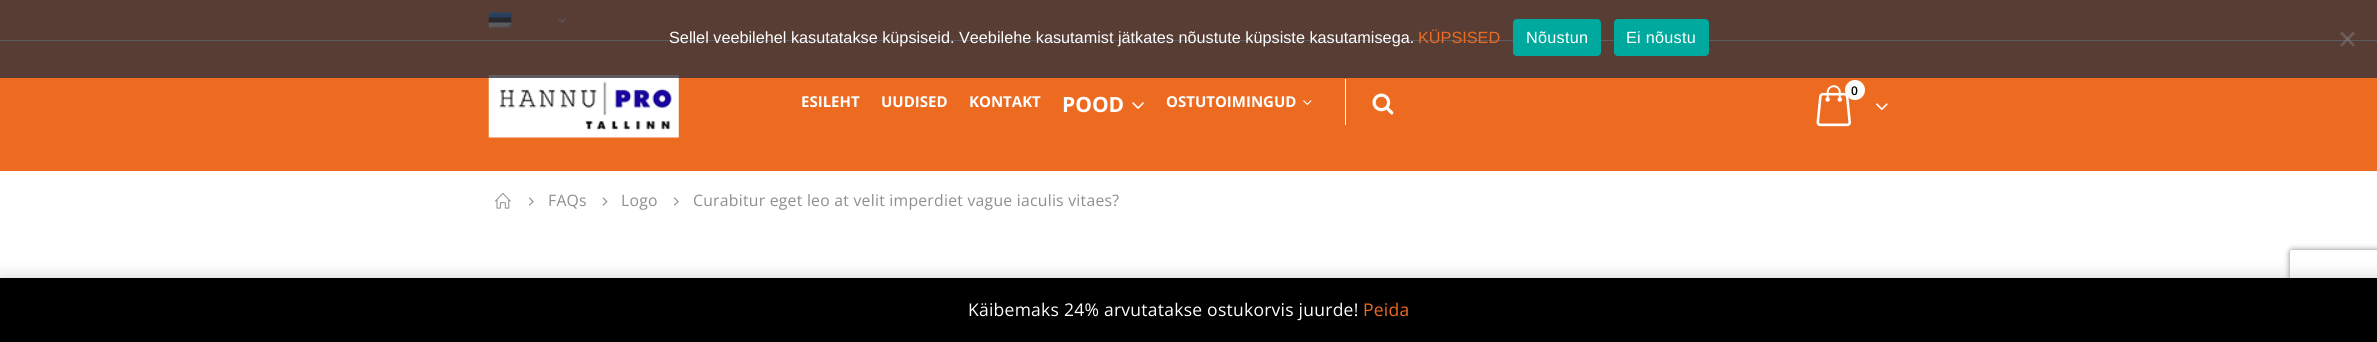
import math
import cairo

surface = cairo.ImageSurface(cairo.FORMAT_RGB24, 2377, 342)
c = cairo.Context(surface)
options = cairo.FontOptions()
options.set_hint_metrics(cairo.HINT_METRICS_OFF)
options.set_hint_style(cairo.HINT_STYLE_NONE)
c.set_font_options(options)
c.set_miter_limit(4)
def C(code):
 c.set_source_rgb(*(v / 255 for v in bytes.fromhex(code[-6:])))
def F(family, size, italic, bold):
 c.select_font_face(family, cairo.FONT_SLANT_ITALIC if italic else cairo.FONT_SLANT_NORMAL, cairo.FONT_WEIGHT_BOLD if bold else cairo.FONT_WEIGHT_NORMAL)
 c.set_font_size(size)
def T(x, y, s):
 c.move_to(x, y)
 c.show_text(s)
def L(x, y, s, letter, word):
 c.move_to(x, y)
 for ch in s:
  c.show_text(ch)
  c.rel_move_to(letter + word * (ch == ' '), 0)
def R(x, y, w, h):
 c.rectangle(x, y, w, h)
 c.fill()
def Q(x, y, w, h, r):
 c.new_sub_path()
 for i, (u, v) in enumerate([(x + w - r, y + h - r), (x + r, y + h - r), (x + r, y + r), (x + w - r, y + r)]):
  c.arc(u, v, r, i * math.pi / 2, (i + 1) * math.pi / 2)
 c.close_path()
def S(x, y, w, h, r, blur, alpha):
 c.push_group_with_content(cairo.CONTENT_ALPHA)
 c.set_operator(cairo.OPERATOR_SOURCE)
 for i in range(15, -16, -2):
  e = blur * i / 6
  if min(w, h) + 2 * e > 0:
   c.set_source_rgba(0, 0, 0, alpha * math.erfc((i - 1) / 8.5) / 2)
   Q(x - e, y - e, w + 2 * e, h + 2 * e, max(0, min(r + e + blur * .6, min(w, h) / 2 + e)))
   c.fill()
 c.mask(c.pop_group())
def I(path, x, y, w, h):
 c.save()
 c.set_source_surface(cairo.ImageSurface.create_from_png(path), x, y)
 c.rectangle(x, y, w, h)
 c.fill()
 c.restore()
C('ffffff')
c.paint()
C('ed6b21')
R(0,0,2377,40)
I('1.png',488,12,24,16)
I('2.png',558,18,8,5)
R(0,41,2377,130)
I('3.png',488,75,191,63)
c.set_source_rgba(0.196,0.196,0.227,0.79)
R(0,0,2377,78)
F('Liberation Sans',16.25,0,0)
C('ffffff')
T(669,43,'Sellel veebilehel kasutatakse küpsiseid. Veebilehe kasutamist jätkates nõustute küpsiste kasutamisega.')
C('ed6b21')
T(1418,43,'KÜPSISED')
C('00a99d')
Q(1513,19,88,37,4)
c.fill()
C('ffffff')
L(1526,43,'Nõustun',.25,0)
C('00a99d')
Q(1614,19,95,37,4)
c.fill()
C('ffffff')
L(1626,43,'Ei nõustu',.25,0)
c.set_source_rgba(0.502,0.502,0.502,0.5)
c.new_path()
c.move_to(2353,31.5)
c.line_to(2355,33.5)
c.line_to(2342,46.5)
c.line_to(2340,45)
c.close_path()
c.fill()
c.new_path()
c.move_to(2340,33.5)
c.line_to(2342,31.5)
c.line_to(2355,45)
c.line_to(2353,46.5)
c.close_path()
c.fill()
I('4.png',1816,85,35,42)
C('ffffff')
c.arc(1855,90,10,0,2 * math.pi)
c.fill()
F('Open Sans SemiBold',12,0,0)
C('000000')
L(1851,95,'0',.25,0)
I('5.png',1876,103,12,8)
F('Open Sans',15,0,1)
C('ffffff')
T(801,107,'ESILEHT')
T(881,107,'UUDISED')
T(969,107,'KONTAKT')
F('Open Sans',21,0,1)
T(1062,112,'POOD')
I('6.png',1132,102,12,7)
F('Open Sans',15,0,1)
T(1166,107,'OSTUTOIMINGUD')
I('7.png',1303,100,9,5)
R(1345,79,1,46)
I('8.png',1372,93,22,22)
I('9.png',495,193,16,16)
I('10.png',529,197,5,9)
F('Open Sans',15.75,0,0)
C('8e8e8e')
L(548,206,'FAQs',.25,0)
I('11.png',602,197,6,9)
L(621,206,'Logo',.25,0)
I('10.png',674,197,5,9)
L(693,206,'Curabitur eget leo at velit imperdiet vague iaculis vitaes?',.25,0)
C('000000')
S(0,279,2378,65,0,9,.2)
c.save()
c.set_fill_rule(cairo.FILL_RULE_EVEN_ODD)
c.new_path()
c.move_to(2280,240)
c.line_to(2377,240)
c.line_to(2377,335)
c.line_to(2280,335)
c.close_path()
c.move_to(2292.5,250)
c.line_to(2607.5,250)
c.curve_to(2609,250,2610,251,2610,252.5)
c.line_to(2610,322.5)
c.curve_to(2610,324,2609,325,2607.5,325)
c.line_to(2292.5,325)
c.curve_to(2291,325,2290,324,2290,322.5)
c.line_to(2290,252.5)
c.curve_to(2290,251,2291,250,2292.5,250)
c.close_path()
c.clip()
C('808080')
S(2290,250,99,75,2.5,3,1)
c.restore()
C('000000')
R(0,278,2377,64)
F('Open Sans',17.5,0,0)
C('ffffff')
L(968,316,'Käibemaks 24% arvutatakse ostukorvis juurde!',.25,0)
C('ed6b21')
L(1363,316,'Peida',.25,0)
surface.write_to_png('o.png')
